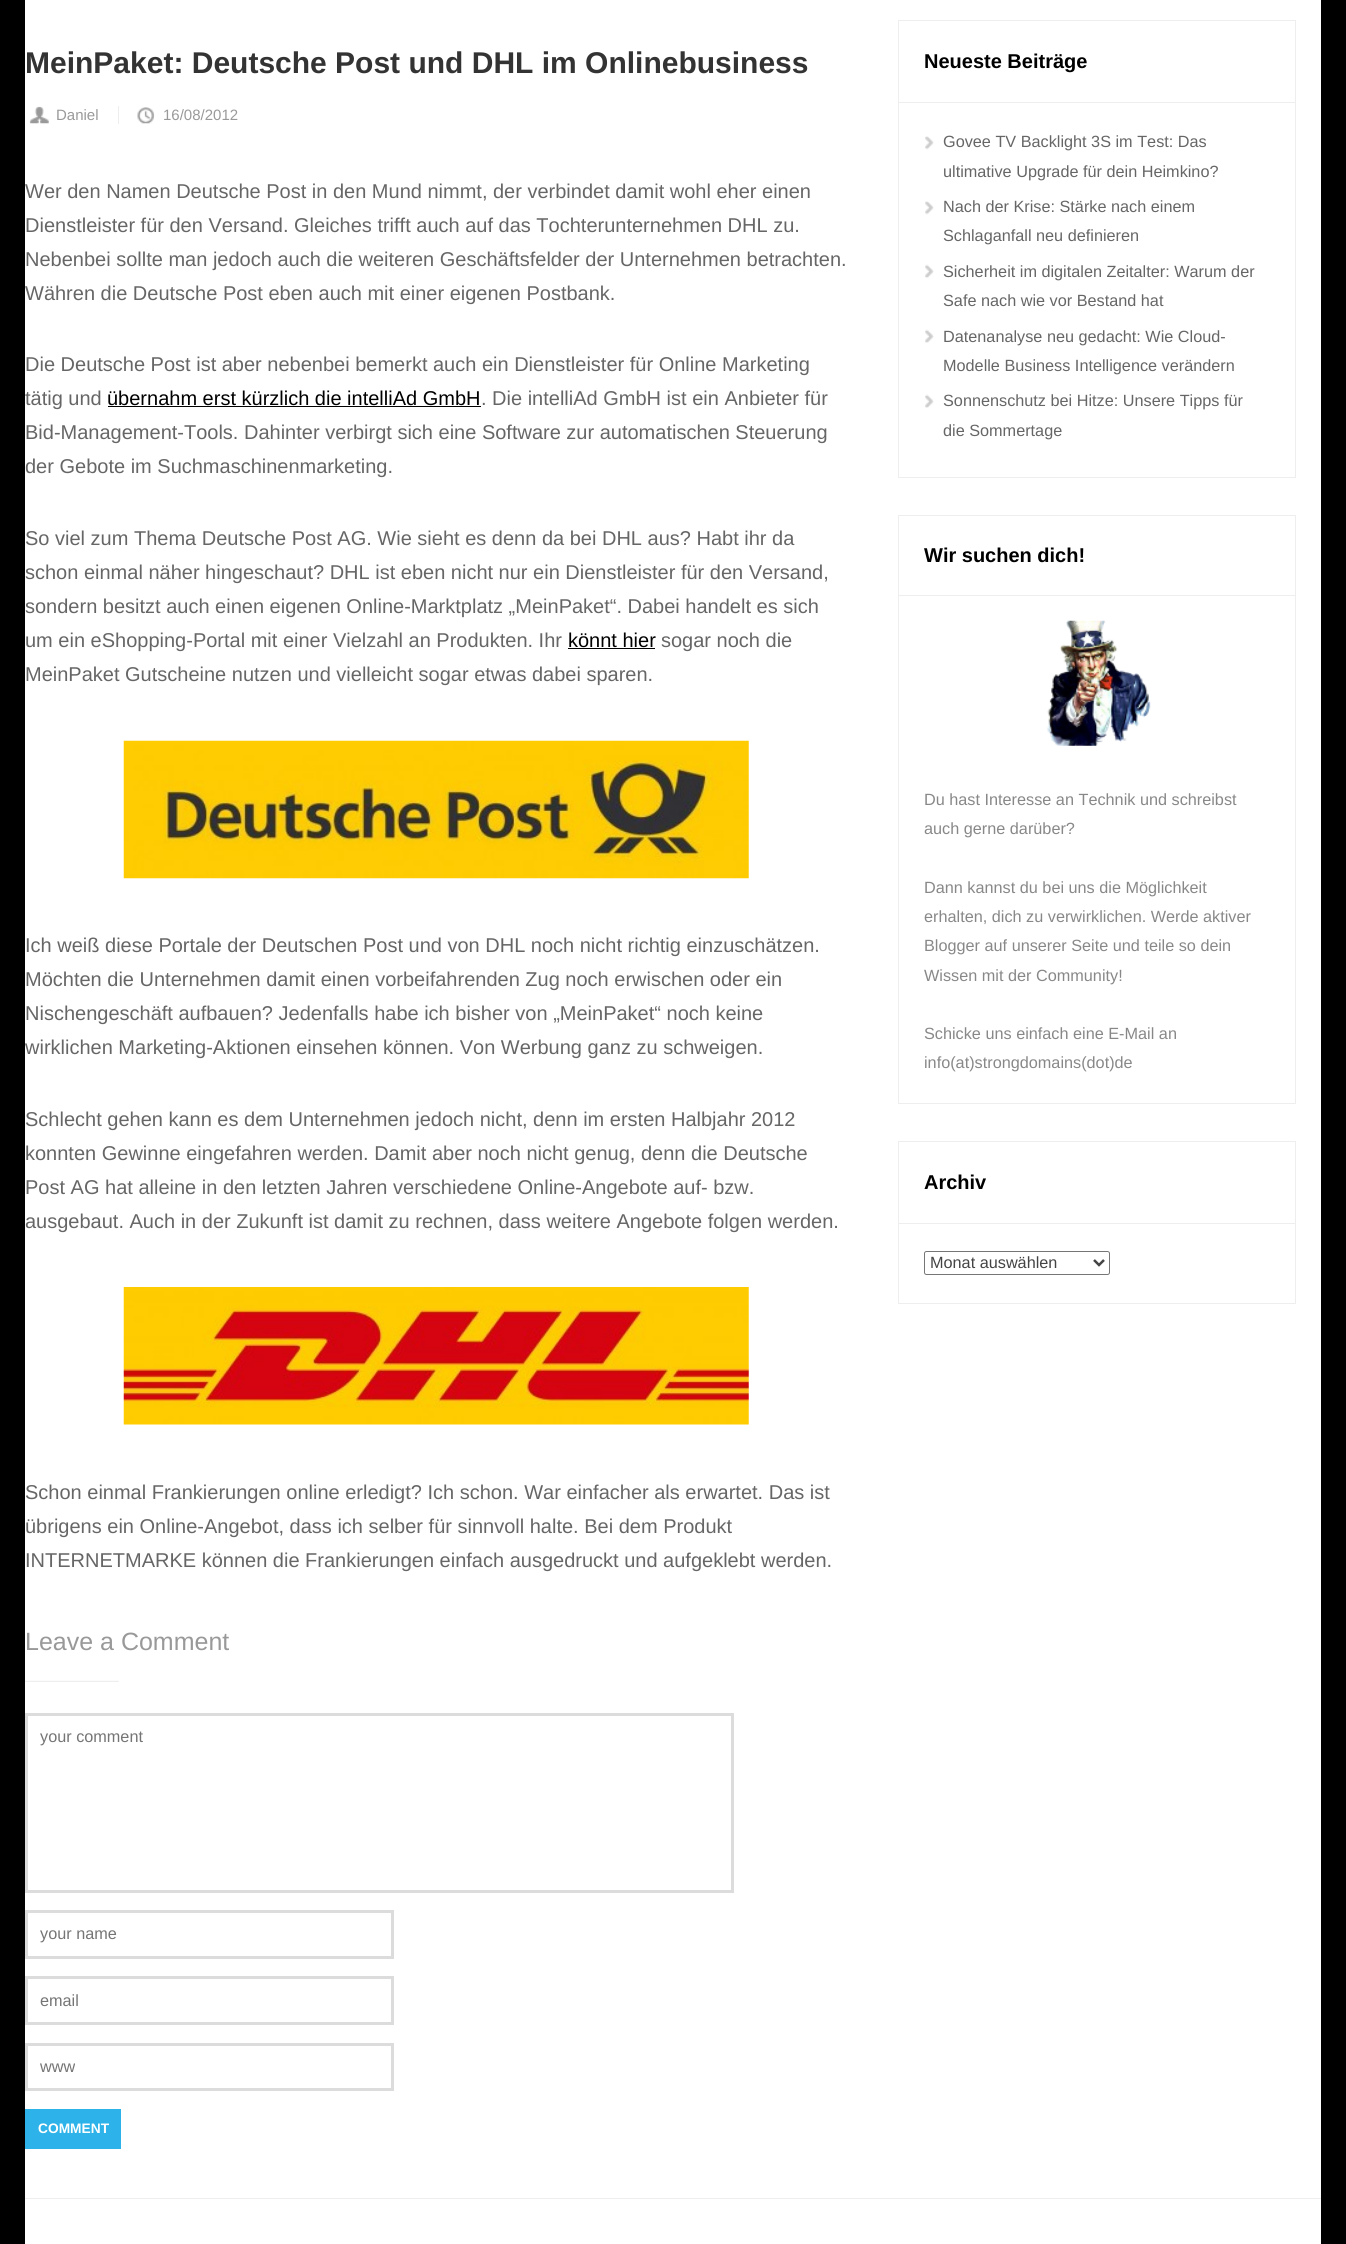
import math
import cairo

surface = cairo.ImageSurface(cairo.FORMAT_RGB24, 1346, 2244)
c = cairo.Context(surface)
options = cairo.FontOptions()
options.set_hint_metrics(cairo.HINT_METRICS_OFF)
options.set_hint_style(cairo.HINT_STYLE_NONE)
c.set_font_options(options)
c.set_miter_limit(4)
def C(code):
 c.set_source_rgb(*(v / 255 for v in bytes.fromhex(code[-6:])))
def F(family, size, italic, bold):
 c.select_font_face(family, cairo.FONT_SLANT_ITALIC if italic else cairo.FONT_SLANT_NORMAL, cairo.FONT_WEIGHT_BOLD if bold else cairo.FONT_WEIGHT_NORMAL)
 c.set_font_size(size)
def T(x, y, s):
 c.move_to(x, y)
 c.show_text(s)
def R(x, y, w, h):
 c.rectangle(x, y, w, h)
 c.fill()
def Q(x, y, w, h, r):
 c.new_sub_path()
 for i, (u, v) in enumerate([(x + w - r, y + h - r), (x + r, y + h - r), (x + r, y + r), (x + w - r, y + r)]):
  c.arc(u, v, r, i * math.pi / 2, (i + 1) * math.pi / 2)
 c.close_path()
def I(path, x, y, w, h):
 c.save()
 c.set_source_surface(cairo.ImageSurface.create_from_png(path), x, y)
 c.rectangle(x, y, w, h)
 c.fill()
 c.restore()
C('000000')
c.paint()
C('ffffff')
R(25,0,1296,2198)
F('Liberation Sans',30,0,1)
C('333333')
T(25,73,'MeinPaket: Deutsche Post und DHL im Onlinebusiness')
I('1.png',29,106,20,18)
F('Liberation Sans',15,0,0)
C('999999')
T(56,120,'Daniel')
C('eeeeee')
R(118,106,1,18)
I('2.png',137,107,18,17)
C('999999')
T(163,120,'16/08/2012')
F('Liberation Sans',20,0,0)
C('666666')
T(25,198,'Wer den Namen Deutsche Post in den Mund nimmt, der verbindet damit wohl eher einen')
T(25,232,'Dienstleister für den Versand. Gleiches trifft auch auf das Tochterunternehmen DHL zu.')
T(25,266,'Nebenbei sollte man jedoch auch die weiteren Geschäftsfelder der Unternehmen betrachten.')
T(25,300,'Währen die Deutsche Post eben auch mit einer eigenen Postbank.')
T(25,371,'Die Deutsche Post ist aber nebenbei bemerkt auch ein Dienstleister für Online Marketing')
T(25,405,'tätig und')
C('000000')
T(107,405,'übernahm erst kürzlich die intelliAd GmbH')
R(108,406,373,1)
C('666666')
T(481,405,'. Die intelliAd GmbH ist ein Anbieter für')
T(25,439,'Bid-Management-Tools. Dahinter verbirgt sich eine Software zur automatischen Steuerung')
T(25,473,'der Gebote im Suchmaschinenmarketing.')
T(25,545,'So viel zum Thema Deutsche Post AG. Wie sieht es denn da bei DHL aus? Habt ihr da')
T(25,579,'schon einmal näher hingeschaut? DHL ist eben nicht nur ein Dienstleister für den Versand,')
T(25,613,'sondern besitzt auch einen eigenen Online-Marktplatz „MeinPaket“. Dabei handelt es sich')
T(25,647,'um ein eShopping-Portal mit einer Vielzahl an Produkten. Ihr')
C('000000')
T(568,647,'könnt hier')
R(568,648,87,1)
C('666666')
T(661,647,'sogar noch die')
T(25,681,'MeinPaket Gutscheine nutzen und vielleicht sogar etwas dabei sparen.')
I('3.png',123,740,626,139)
T(25,952,'Ich weiß diese Portale der Deutschen Post und von DHL noch nicht richtig einzuschätzen.')
T(25,986,'Möchten die Unternehmen damit einen vorbeifahrenden Zug noch erwischen oder ein')
T(25,1020,'Nischengeschäft aufbauen? Jedenfalls habe ich bisher von „MeinPaket“ noch keine')
T(25,1054,'wirklichen Marketing-Aktionen einsehen können. Von Werbung ganz zu schweigen.')
T(25,1126,'Schlecht gehen kann es dem Unternehmen jedoch nicht, denn im ersten Halbjahr 2012')
T(25,1160,'konnten Gewinne eingefahren werden. Damit aber noch nicht genug, denn die Deutsche')
T(25,1194,'Post AG hat alleine in den letzten Jahren verschiedene Online-Angebote auf- bzw.')
T(25,1228,'ausgebaut. Auch in der Zukunft ist damit zu rechnen, dass weitere Angebote folgen werden.')
I('4.png',123,1287,626,138)
T(25,1499,'Schon einmal Frankierungen online erledigt? Ich schon. War einfacher als erwartet. Das ist')
T(25,1533,'übrigens ein Online-Angebot, dass ich selber für sinnvoll halte. Bei dem Produkt')
T(25,1567,'INTERNETMARKE können die Frankierungen einfach ausgedruckt und aufgeklebt werden.')
I('5.png',25,1680,94,2)
F('Liberation Sans',25,0,0)
C('999999')
T(25,1650,'Leave a Comment')
c.rectangle(26.5,1714.5,706,177)
C('dcdcdc')
c.set_line_width(3)
c.stroke()
F('Liberation Sans',16.25,0,0)
C('757575')
T(40,1742,'your comment')
c.rectangle(26.5,1911.5,366,46)
C('dcdcdc')
c.stroke()
C('757575')
T(40,1939,'your name')
c.rectangle(26.5,1977.5,366,46)
C('dcdcdc')
c.stroke()
C('757575')
T(40,2006,'email')
c.rectangle(26.5,2044.5,366,45)
C('dcdcdc')
c.stroke()
C('757575')
T(40,2072,'www')
C('2db3e9')
R(25,2109,96,40)
F('Liberation Sans',13.75,0,1)
C('ffffff')
T(38,2133,'COMMENT')
c.rectangle(898.5,20.5,397,457)
C('eeeeee')
c.set_line_width(1)
c.stroke()
c.save()
c.rectangle(899,21,396,455)
c.clip()
c.rectangle(898.5,20.5,397,82)
c.stroke()
c.restore()
F('Liberation Sans',20,0,1)
C('000000')
T(924,68,'Neueste Beiträge')
I('6.png',925,136,9,14)
F('Liberation Sans',16.25,0,0)
C('666666')
T(943,147,'Govee TV Backlight 3S im Test: Das')
T(943,177,'ultimative Upgrade für dein Heimkino?')
I('6.png',925,201,9,14)
T(943,212,'Nach der Krise: Stärke nach einem')
T(943,241,'Schlaganfall neu definieren')
I('7.png',925,264,9,14)
T(943,277,'Sicherheit im digitalen Zeitalter: Warum der')
T(943,306,'Safe nach wie vor Bestand hat')
I('7.png',925,329,9,14)
T(943,342,'Datenanalyse neu gedacht: Wie Cloud-')
T(943,371,'Modelle Business Intelligence verändern')
I('7.png',925,394,9,14)
T(943,406,'Sonnenschutz bei Hitze: Unsere Tipps für')
T(943,436,'die Sommertage')
c.rectangle(898.5,515.5,397,588)
C('eeeeee')
c.stroke()
c.save()
c.rectangle(899,516,396,587)
c.clip()
c.rectangle(898.5,515.5,397,80)
c.stroke()
c.restore()
F('Liberation Sans',20,0,1)
C('000000')
T(924,562,'Wir suchen dich!')
I('8.png',1046,620,105,126)
F('Liberation Sans',16.25,0,0)
C('888888')
T(924,805,'Du hast Interesse an Technik und schreibst')
T(924,834,'auch gerne darüber?')
T(924,893,'Dann kannst du bei uns die Möglichkeit')
T(924,922,'erhalten, dich zu verwirklichen. Werde aktiver')
T(924,951,'Blogger auf unserer Seite und teile so dein')
T(924,981,'Wissen mit der Community!')
T(924,1039,'Schicke uns einfach eine E-Mail an')
T(924,1068,'info(at)strongdomains(dot)de')
c.rectangle(898.5,1141.5,397,162)
C('eeeeee')
c.stroke()
c.save()
c.rectangle(899,1143,396,160)
c.clip()
c.rectangle(898.5,1141.5,397,82)
c.stroke()
c.restore()
F('Liberation Sans',20,0,1)
C('000000')
T(924,1189,'Archiv')
Q(924.5,1251.5,185,23,2)
C('767676')
c.stroke()
c.new_path()
c.move_to(1094,1260)
c.line_to(1099,1265)
c.line_to(1104,1260)
C('444444')
c.set_line_width(2.5)
c.stroke()
F('Liberation Sans',16.25,0,0)
T(930,1268,'Monat auswählen')
C('ffffff')
R(25,2199,1296,45)
C('eeeeee')
R(25,2198,1296,1)
surface.write_to_png('o.png')
